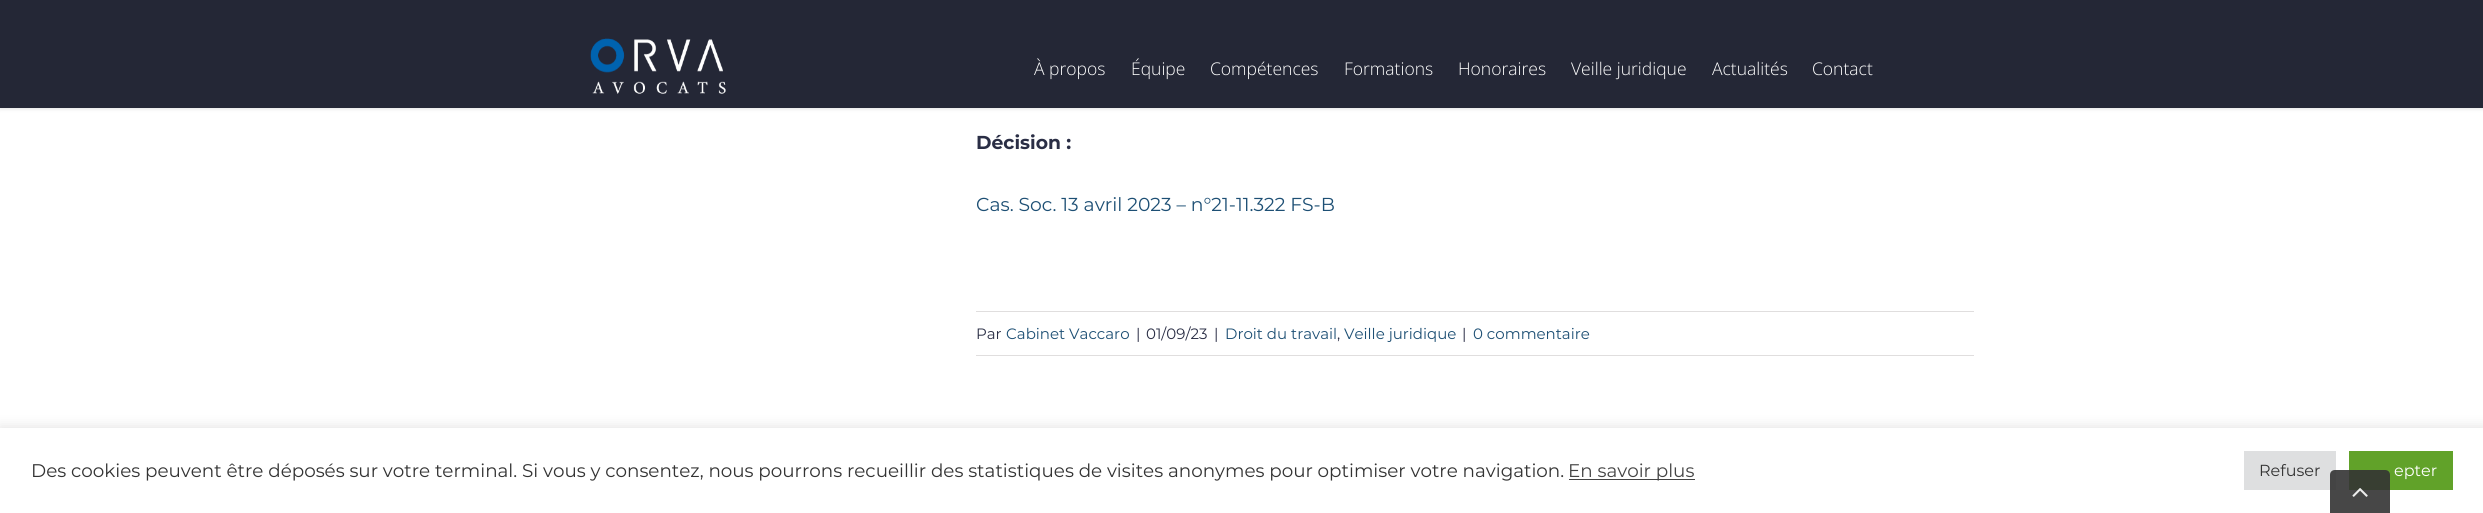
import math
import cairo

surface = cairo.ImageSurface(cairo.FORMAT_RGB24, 2483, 513)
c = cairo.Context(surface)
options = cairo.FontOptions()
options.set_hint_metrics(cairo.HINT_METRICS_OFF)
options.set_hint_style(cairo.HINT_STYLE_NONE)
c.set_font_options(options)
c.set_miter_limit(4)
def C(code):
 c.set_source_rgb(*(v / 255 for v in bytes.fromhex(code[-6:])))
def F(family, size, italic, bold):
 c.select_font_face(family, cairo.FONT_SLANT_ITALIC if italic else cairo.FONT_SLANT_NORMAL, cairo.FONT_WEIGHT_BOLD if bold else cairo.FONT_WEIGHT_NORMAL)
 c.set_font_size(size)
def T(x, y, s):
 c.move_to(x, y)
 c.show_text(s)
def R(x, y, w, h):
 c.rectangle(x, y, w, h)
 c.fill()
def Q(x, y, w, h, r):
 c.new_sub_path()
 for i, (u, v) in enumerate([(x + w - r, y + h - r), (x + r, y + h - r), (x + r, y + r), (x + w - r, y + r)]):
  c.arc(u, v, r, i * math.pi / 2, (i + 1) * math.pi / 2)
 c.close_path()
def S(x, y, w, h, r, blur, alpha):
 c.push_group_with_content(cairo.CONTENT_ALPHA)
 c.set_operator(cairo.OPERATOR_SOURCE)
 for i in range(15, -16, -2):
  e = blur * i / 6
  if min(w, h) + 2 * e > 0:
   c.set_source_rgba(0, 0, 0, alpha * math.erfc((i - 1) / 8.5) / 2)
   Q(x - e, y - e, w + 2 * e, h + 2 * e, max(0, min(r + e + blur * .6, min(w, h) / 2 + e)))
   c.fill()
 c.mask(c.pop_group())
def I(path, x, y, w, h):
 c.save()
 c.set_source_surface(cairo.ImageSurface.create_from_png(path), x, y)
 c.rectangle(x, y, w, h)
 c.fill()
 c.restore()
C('ffffff')
c.paint()
C('000000')
S(0,1,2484,108,0,2,.12)
C('242736')
R(0,0,2483,108)
I('1.png',590,38,136,56)
F('Open Sans Light',17.5,0,0)
C('ffffff')
T(1034,75,'À propos')
T(1131,75,'Équipe')
T(1210,75,'Compétences')
T(1344,75,'Formations')
T(1458,75,'Honoraires')
T(1571,75,'Veille juridique')
T(1712,75,'Actualités')
T(1812,75,'Contact')
F('Montserrat',18.75,0,1)
C('2a2e45')
T(976,149,'Décision :')
F('Montserrat',18.75,0,0)
C('1d4f74')
T(976,211,'Cas. Soc. 13 avril 2023 – n°21-11.322 FS-B')
C('e0dede')
R(976,311,998,1)
R(976,355,998,1)
F('Montserrat',15,0,0)
C('2a2e45')
T(976,339,'Par')
C('1d4f74')
T(1006,339,'Cabinet Vaccaro')
C('2a2e45')
T(1136,339,'|')
T(1146,339,'01/09/23')
T(1214,339,'|')
C('1d4f74')
T(1225,339,'Droit du travail')
C('2a2e45')
T(1337,339,',')
C('1d4f74')
T(1344,339,'Veille juridique')
C('2a2e45')
T(1462,339,'|')
C('1d4f74')
T(1473,339,'0 commentaire')
C('acabab')
S(0,426,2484,87,0,6,.3)
C('ffffff')
R(0,428,2483,85)
F('Montserrat',18.33,0,0)
C('333333')
T(31,477,'Des cookies peuvent être déposés sur votre terminal. Si vous y consentez, nous pourrons recueillir des statistiques de visites anonymes pour optimiser votre navigation.')
C('444444')
R(1569,479,126,1)
T(1568,477,'En savoir plus')
C('dedfe0')
R(2244,451,92,39)
F('Montserrat',16,0,0)
C('333333')
T(2259,476,'Refuser')
C('61a229')
R(2349,451,104,39)
C('ffffff')
T(2394,476,'epter')
c.set_source_rgba(0.2,0.2,0.2,0.9)
c.new_path()
c.move_to(2335,470)
c.line_to(2385,470)
c.curve_to(2388,470,2390,472,2390,475)
c.line_to(2390,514)
c.line_to(2330,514)
c.line_to(2330,475)
c.curve_to(2330,472,2332,470,2335,470)
c.close_path()
c.fill()
I('2.png',2352,488,16,9)
surface.write_to_png('o.png')
